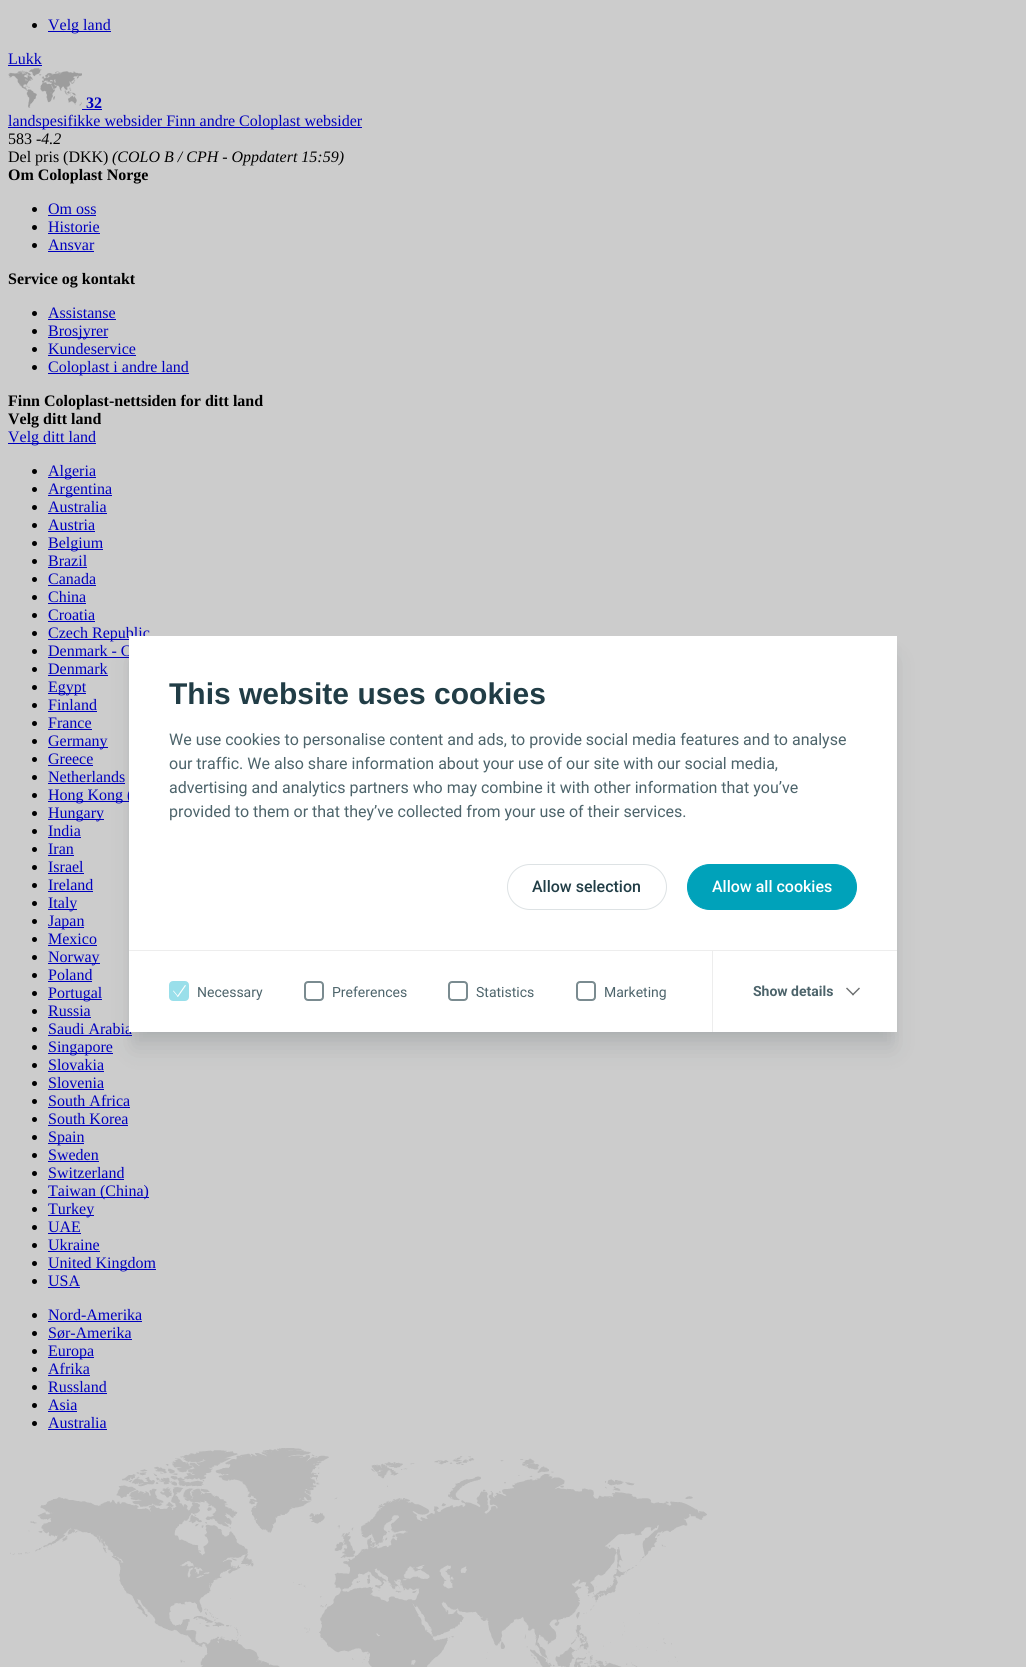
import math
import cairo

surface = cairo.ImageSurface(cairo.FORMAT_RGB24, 1026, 1667)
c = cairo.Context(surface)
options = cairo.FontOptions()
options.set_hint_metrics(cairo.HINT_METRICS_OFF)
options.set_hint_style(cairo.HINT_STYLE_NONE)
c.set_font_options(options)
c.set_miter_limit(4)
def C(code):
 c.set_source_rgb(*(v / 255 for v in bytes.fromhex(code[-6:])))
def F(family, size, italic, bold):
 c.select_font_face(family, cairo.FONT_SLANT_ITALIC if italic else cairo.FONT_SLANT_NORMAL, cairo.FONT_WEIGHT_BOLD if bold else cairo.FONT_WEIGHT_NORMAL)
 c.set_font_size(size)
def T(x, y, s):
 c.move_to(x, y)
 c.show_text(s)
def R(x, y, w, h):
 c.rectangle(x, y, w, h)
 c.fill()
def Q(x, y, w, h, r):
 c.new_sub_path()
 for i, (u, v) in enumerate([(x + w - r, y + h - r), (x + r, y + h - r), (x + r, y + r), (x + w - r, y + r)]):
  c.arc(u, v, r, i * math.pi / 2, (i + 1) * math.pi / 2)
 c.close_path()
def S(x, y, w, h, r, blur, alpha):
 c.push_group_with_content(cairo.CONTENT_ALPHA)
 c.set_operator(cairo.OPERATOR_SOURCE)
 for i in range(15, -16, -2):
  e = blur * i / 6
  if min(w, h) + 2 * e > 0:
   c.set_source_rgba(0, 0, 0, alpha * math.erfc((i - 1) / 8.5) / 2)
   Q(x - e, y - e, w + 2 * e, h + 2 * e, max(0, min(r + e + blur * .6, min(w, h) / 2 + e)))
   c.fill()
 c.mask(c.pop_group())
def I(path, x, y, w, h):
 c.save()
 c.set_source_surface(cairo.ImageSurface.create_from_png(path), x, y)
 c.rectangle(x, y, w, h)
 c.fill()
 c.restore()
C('cccccc')
c.paint()
C('000000')
c.arc(34.5,25.5,2.5,0,2 * math.pi)
c.fill()
C('0000be')
R(48,31,63,1)
F('Liberation Serif',16,0,0)
T(48,30,'Velg land')
T(8,64,'Lukk')
R(8,65,34,1)
I('1.png',8,68,74,40)
F('Liberation Serif',16,0,1)
T(86,108,'32')
R(82,109,20,1)
R(8,127,354,1)
F('Liberation Serif',16,0,0)
T(8,126,'landspesifikke websider Finn andre Coloplast websider')
C('000000')
T(8,144,'583')
F('Liberation Serif',16,1,0)
T(36,144,'-4.2')
F('Liberation Serif',16,0,0)
T(8,162,'Del pris (DKK)')
F('Liberation Serif',16,1,0)
T(112,162,'(COLO B / CPH - Oppdatert 15:59)')
F('Liberation Serif',16,0,1)
T(8,180,'Om Coloplast Norge')
c.new_path()
c.arc(34.5,209.5,2.5,0,2 * math.pi)
c.fill()
F('Liberation Serif',16,0,0)
C('0000be')
T(48,214,'Om oss')
R(48,215,48,1)
C('000000')
c.new_path()
c.arc(34.5,227.5,2.5,0,2 * math.pi)
c.fill()
C('0000be')
T(48,232,'Historie')
R(48,233,52,1)
C('000000')
c.new_path()
c.arc(34.5,245.5,2.5,0,2 * math.pi)
c.fill()
C('0000be')
T(48,250,'Ansvar')
R(48,251,46,1)
F('Liberation Serif',16,0,1)
C('000000')
T(8,284,'Service og kontakt')
c.new_path()
c.arc(34.5,313.5,2.5,0,2 * math.pi)
c.fill()
F('Liberation Serif',16,0,0)
C('0000be')
T(48,318,'Assistanse')
R(48,319,68,1)
C('000000')
c.new_path()
c.arc(34.5,331.5,2.5,0,2 * math.pi)
c.fill()
C('0000be')
R(48,337,60,1)
T(48,336,'Brosjyrer')
C('000000')
c.new_path()
c.arc(34.5,349.5,2.5,0,2 * math.pi)
c.fill()
C('0000be')
T(48,354,'Kundeservice')
R(48,355,88,1)
C('000000')
c.new_path()
c.arc(34.5,367.5,2.5,0,2 * math.pi)
c.fill()
C('0000be')
R(48,373,141,1)
T(48,372,'Coloplast i andre land')
F('Liberation Serif',16,0,1)
C('000000')
T(8,406,'Finn Coloplast-nettsiden for ditt land')
T(8,424,'Velg ditt land')
C('0000be')
R(8,443,88,1)
F('Liberation Serif',16,0,0)
T(8,442,'Velg ditt land')
C('000000')
c.new_path()
c.arc(34.5,471.5,2.5,0,2 * math.pi)
c.fill()
C('0000be')
R(48,477,48,1)
T(48,476,'Algeria')
C('000000')
c.new_path()
c.arc(34.5,489.5,2.5,0,2 * math.pi)
c.fill()
C('0000be')
R(48,495,64,1)
T(48,494,'Argentina')
C('000000')
c.new_path()
c.arc(34.5,507.5,2.5,0,2 * math.pi)
c.fill()
C('0000be')
T(48,512,'Australia')
R(48,513,59,1)
C('000000')
c.new_path()
c.arc(34.5,525.5,2.5,0,2 * math.pi)
c.fill()
C('0000be')
T(48,530,'Austria')
R(48,531,47,1)
C('000000')
c.new_path()
c.arc(34.5,543.5,2.5,0,2 * math.pi)
c.fill()
C('0000be')
R(48,549,55,1)
T(48,548,'Belgium')
C('000000')
c.new_path()
c.arc(34.5,561.5,2.5,0,2 * math.pi)
c.fill()
C('0000be')
T(48,566,'Brazil')
R(48,567,39,1)
C('000000')
c.new_path()
c.arc(34.5,579.5,2.5,0,2 * math.pi)
c.fill()
C('0000be')
T(48,584,'Canada')
R(48,585,48,1)
C('000000')
c.new_path()
c.arc(34.5,597.5,2.5,0,2 * math.pi)
c.fill()
C('0000be')
T(48,602,'China')
R(48,603,38,1)
C('000000')
c.new_path()
c.arc(34.5,615.5,2.5,0,2 * math.pi)
c.fill()
C('0000be')
T(48,620,'Croatia')
R(48,621,47,1)
C('000000')
c.new_path()
c.arc(34.5,633.5,2.5,0,2 * math.pi)
c.fill()
C('0000be')
R(48,639,81,1)
T(48,638,'Czech Republic')
C('000000')
c.new_path()
c.arc(34.5,651.5,2.5,0,2 * math.pi)
c.fill()
C('0000be')
T(48,656,'Denmark - C')
R(48,657,81,1)
C('000000')
c.new_path()
c.arc(34.5,669.5,2.5,0,2 * math.pi)
c.fill()
C('0000be')
T(48,674,'Denmark')
R(48,675,60,1)
C('000000')
c.new_path()
c.arc(34.5,687.5,2.5,0,2 * math.pi)
c.fill()
C('0000be')
R(48,693,38,1)
T(48,692,'Egypt')
C('000000')
c.new_path()
c.arc(34.5,705.5,2.5,0,2 * math.pi)
c.fill()
C('0000be')
T(48,710,'Finland')
R(48,711,49,1)
C('000000')
c.new_path()
c.arc(34.5,723.5,2.5,0,2 * math.pi)
c.fill()
C('0000be')
T(48,728,'France')
R(48,729,44,1)
C('000000')
c.new_path()
c.arc(34.5,741.5,2.5,0,2 * math.pi)
c.fill()
C('0000be')
R(48,747,60,1)
T(48,746,'Germany')
C('000000')
c.new_path()
c.arc(34.5,759.5,2.5,0,2 * math.pi)
c.fill()
C('0000be')
T(48,764,'Greece')
R(48,765,45,1)
C('000000')
c.new_path()
c.arc(34.5,777.5,2.5,0,2 * math.pi)
c.fill()
C('0000be')
T(48,782,'Netherlands')
R(48,783,77,1)
C('000000')
c.new_path()
c.arc(34.5,795.5,2.5,0,2 * math.pi)
c.fill()
C('0000be')
R(48,801,81,1)
T(48,800,'Hong Kong (')
C('000000')
c.new_path()
c.arc(34.5,813.5,2.5,0,2 * math.pi)
c.fill()
C('0000be')
R(48,819,56,1)
T(48,818,'Hungary')
C('000000')
c.new_path()
c.arc(34.5,831.5,2.5,0,2 * math.pi)
c.fill()
C('0000be')
T(48,836,'India')
R(48,837,33,1)
C('000000')
c.new_path()
c.arc(34.5,849.5,2.5,0,2 * math.pi)
c.fill()
C('0000be')
T(48,854,'Iran')
R(48,855,26,1)
C('000000')
c.new_path()
c.arc(34.5,867.5,2.5,0,2 * math.pi)
c.fill()
C('0000be')
T(48,872,'Israel')
R(48,873,36,1)
C('000000')
c.new_path()
c.arc(34.5,885.5,2.5,0,2 * math.pi)
c.fill()
C('0000be')
T(48,890,'Ireland')
R(48,891,45,1)
C('000000')
c.new_path()
c.arc(34.5,903.5,2.5,0,2 * math.pi)
c.fill()
C('0000be')
R(48,909,29,1)
T(48,908,'Italy')
C('000000')
c.new_path()
c.arc(34.5,921.5,2.5,0,2 * math.pi)
c.fill()
C('0000be')
R(48,927,36,1)
T(48,926,'Japan')
C('000000')
c.new_path()
c.arc(34.5,939.5,2.5,0,2 * math.pi)
c.fill()
C('0000be')
T(48,944,'Mexico')
R(48,945,49,1)
C('000000')
c.new_path()
c.arc(34.5,957.5,2.5,0,2 * math.pi)
c.fill()
C('0000be')
R(48,963,52,1)
T(48,962,'Norway')
C('000000')
c.new_path()
c.arc(34.5,975.5,2.5,0,2 * math.pi)
c.fill()
C('0000be')
T(48,980,'Poland')
R(48,981,44,1)
C('000000')
c.new_path()
c.arc(34.5,993.5,2.5,0,2 * math.pi)
c.fill()
C('0000be')
R(48,999,54,1)
T(48,998,'Portugal')
C('000000')
c.new_path()
c.arc(34.5,1011.5,2.5,0,2 * math.pi)
c.fill()
C('0000be')
T(48,1016,'Russia')
R(48,1017,43,1)
C('000000')
c.new_path()
c.arc(34.5,1029.5,2.5,0,2 * math.pi)
c.fill()
C('0000be')
T(48,1034,'Saudi Arabia')
R(48,1035,84,1)
C('000000')
c.new_path()
c.arc(34.5,1047.5,2.5,0,2 * math.pi)
c.fill()
C('0000be')
R(48,1053,65,1)
T(48,1052,'Singapore')
C('000000')
c.new_path()
c.arc(34.5,1065.5,2.5,0,2 * math.pi)
c.fill()
C('0000be')
T(48,1070,'Slovakia')
R(48,1071,56,1)
C('000000')
c.new_path()
c.arc(34.5,1083.5,2.5,0,2 * math.pi)
c.fill()
C('0000be')
T(48,1088,'Slovenia')
R(48,1089,56,1)
C('000000')
c.new_path()
c.arc(34.5,1101.5,2.5,0,2 * math.pi)
c.fill()
C('0000be')
T(48,1106,'South Africa')
R(48,1107,82,1)
C('000000')
c.new_path()
c.arc(34.5,1119.5,2.5,0,2 * math.pi)
c.fill()
C('0000be')
T(48,1124,'South Korea')
R(48,1125,80,1)
C('000000')
c.new_path()
c.arc(34.5,1137.5,2.5,0,2 * math.pi)
c.fill()
C('0000be')
R(48,1143,36,1)
T(48,1142,'Spain')
C('000000')
c.new_path()
c.arc(34.5,1155.5,2.5,0,2 * math.pi)
c.fill()
C('0000be')
T(48,1160,'Sweden')
R(48,1161,51,1)
C('000000')
c.new_path()
c.arc(34.5,1173.5,2.5,0,2 * math.pi)
c.fill()
C('0000be')
T(48,1178,'Switzerland')
R(48,1179,76,1)
C('000000')
c.new_path()
c.arc(34.5,1191.5,2.5,0,2 * math.pi)
c.fill()
C('0000be')
R(48,1197,101,1)
T(48,1196,'Taiwan (China)')
C('000000')
c.new_path()
c.arc(34.5,1209.5,2.5,0,2 * math.pi)
c.fill()
C('0000be')
R(48,1215,46,1)
T(48,1214,'Turkey')
C('000000')
c.new_path()
c.arc(34.5,1227.5,2.5,0,2 * math.pi)
c.fill()
C('0000be')
T(48,1232,'UAE')
R(48,1233,33,1)
C('000000')
c.new_path()
c.arc(34.5,1245.5,2.5,0,2 * math.pi)
c.fill()
C('0000be')
T(48,1250,'Ukraine')
R(48,1251,52,1)
C('000000')
c.new_path()
c.arc(34.5,1263.5,2.5,0,2 * math.pi)
c.fill()
C('0000be')
R(48,1269,108,1)
T(48,1268,'United Kingdom')
C('000000')
c.new_path()
c.arc(34.5,1281.5,2.5,0,2 * math.pi)
c.fill()
C('0000be')
T(48,1286,'USA')
R(48,1287,32,1)
C('000000')
c.new_path()
c.arc(34.5,1315.5,2.5,0,2 * math.pi)
c.fill()
C('0000be')
T(48,1320,'Nord-Amerika')
R(48,1321,94,1)
C('000000')
c.new_path()
c.arc(34.5,1333.5,2.5,0,2 * math.pi)
c.fill()
C('0000be')
T(48,1338,'Sør-Amerika')
R(48,1339,84,1)
C('000000')
c.new_path()
c.arc(34.5,1351.5,2.5,0,2 * math.pi)
c.fill()
C('0000be')
R(48,1357,46,1)
T(48,1356,'Europa')
C('000000')
c.new_path()
c.arc(34.5,1369.5,2.5,0,2 * math.pi)
c.fill()
C('0000be')
T(48,1374,'Afrika')
R(48,1375,42,1)
C('000000')
c.new_path()
c.arc(34.5,1387.5,2.5,0,2 * math.pi)
c.fill()
C('0000be')
T(48,1392,'Russland')
R(48,1393,59,1)
C('000000')
c.new_path()
c.arc(34.5,1405.5,2.5,0,2 * math.pi)
c.fill()
C('0000be')
T(48,1410,'Asia')
R(48,1411,29,1)
C('000000')
c.new_path()
c.arc(34.5,1423.5,2.5,0,2 * math.pi)
c.fill()
C('0000be')
T(48,1428,'Australia')
R(48,1429,59,1)
I('2.png',10,1448,697,219)
C('15272d')
S(133,660,760,388,0,12,.12)
S(133,648,760,388,0,6,.08)
C('ffffff')
R(129,636,768,396)
F('Liberation Sans',30,0,1)
C('213d46')
T(169,704,'This website uses cookies')
F('Roboto',16,0,0)
C('4d646b')
T(169,745,'We use cookies to personalise content and ads, to provide social media features and to analyse')
T(169,769,'our traffic. We also share information about your use of our site with our social media,')
T(169,793,'advertising and analytics partners who may combine it with other information that you’ve')
T(169,817,'provided to them or that they’ve collected from your use of their services.')
Q(507.5,864.5,159,45,22.5)
C('dde2e4')
c.set_line_width(1)
c.stroke()
F('Roboto Medium',16,0,0)
C('213d46')
T(532,892,'Allow selection')
C('00a2ba')
Q(687.5,864.5,169,45,22.5)
c.fill_preserve()
c.stroke()
C('ffffff')
T(712,892,'Allow all cookies')
C('ededed')
R(129,950,768,1)
C('99dfea')
Q(170,982,18,18,3)
c.fill_preserve()
c.set_line_width(2)
c.stroke()
C('ffffff')
c.new_path()
c.move_to(185,985)
c.line_to(186,985.5)
c.line_to(178,997)
c.line_to(177,996.5)
c.close_path()
c.fill()
c.new_path()
c.move_to(173,991)
c.line_to(173.5,990.5)
c.line_to(178,996)
c.line_to(177.5,996.5)
c.close_path()
c.fill()
F('Roboto',14,0,0)
C('4d646b')
T(197,997,'Necessary')
Q(305,982,18,18,3)
C('7a8b90')
c.stroke()
C('4d646b')
T(332,997,'Preferences')
Q(449,982,18,18,3)
C('7a8b90')
c.stroke()
C('4d646b')
T(476,997,'Statistics')
Q(577,982,18,18,3)
C('7a8b90')
c.stroke()
C('4d646b')
T(604,997,'Marketing')
C('ededed')
R(712,951,1,81)
F('Roboto',14,0,1)
C('4d646b')
T(753,996,'Show details')
C('6c6f70')
c.new_path()
c.move_to(846,988.5)
c.line_to(847,987.5)
c.line_to(854,994.5)
c.line_to(853,995.5)
c.close_path()
c.fill()
c.new_path()
c.move_to(859,987.5)
c.line_to(860,988.5)
c.line_to(853,995.5)
c.line_to(852,994.5)
c.close_path()
c.fill()
surface.write_to_png('o.png')
